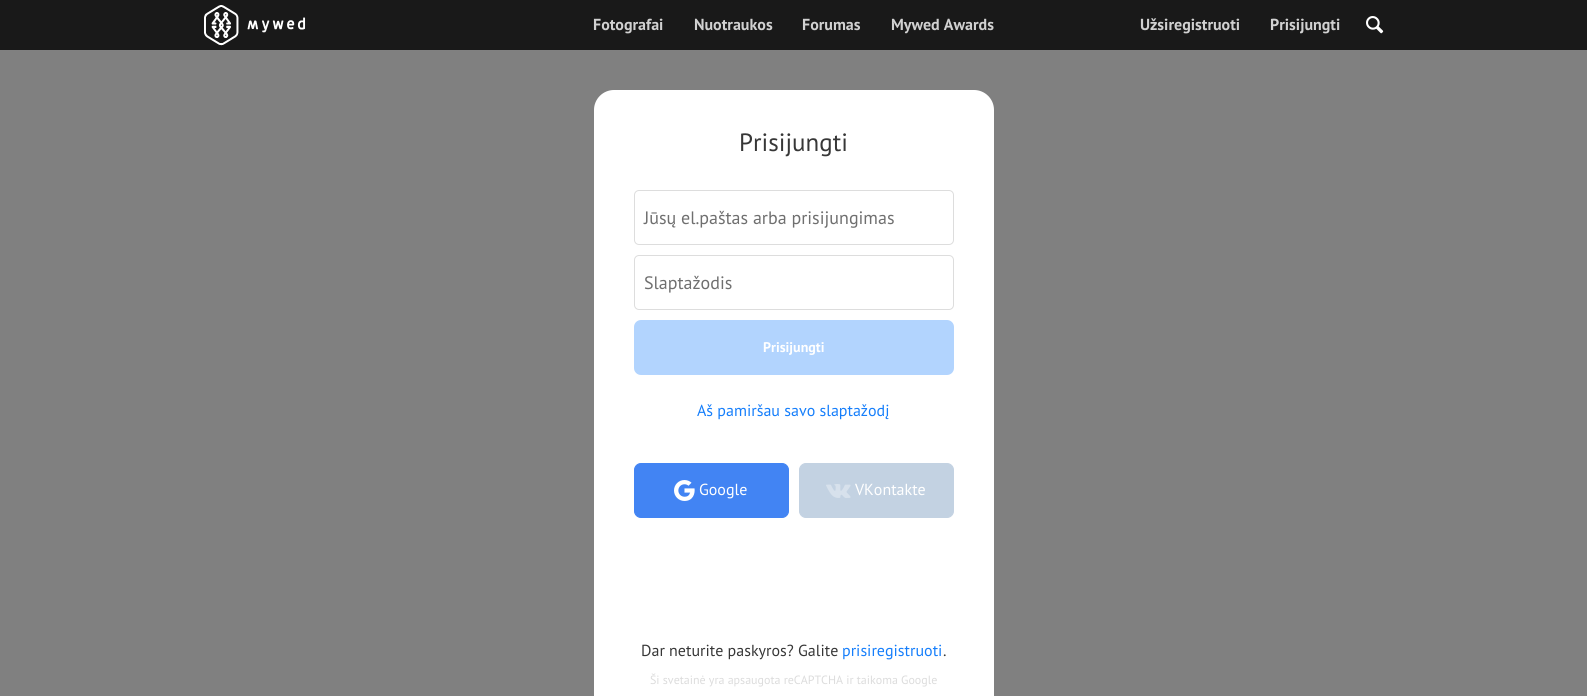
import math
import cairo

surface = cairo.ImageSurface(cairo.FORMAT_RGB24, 1587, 696)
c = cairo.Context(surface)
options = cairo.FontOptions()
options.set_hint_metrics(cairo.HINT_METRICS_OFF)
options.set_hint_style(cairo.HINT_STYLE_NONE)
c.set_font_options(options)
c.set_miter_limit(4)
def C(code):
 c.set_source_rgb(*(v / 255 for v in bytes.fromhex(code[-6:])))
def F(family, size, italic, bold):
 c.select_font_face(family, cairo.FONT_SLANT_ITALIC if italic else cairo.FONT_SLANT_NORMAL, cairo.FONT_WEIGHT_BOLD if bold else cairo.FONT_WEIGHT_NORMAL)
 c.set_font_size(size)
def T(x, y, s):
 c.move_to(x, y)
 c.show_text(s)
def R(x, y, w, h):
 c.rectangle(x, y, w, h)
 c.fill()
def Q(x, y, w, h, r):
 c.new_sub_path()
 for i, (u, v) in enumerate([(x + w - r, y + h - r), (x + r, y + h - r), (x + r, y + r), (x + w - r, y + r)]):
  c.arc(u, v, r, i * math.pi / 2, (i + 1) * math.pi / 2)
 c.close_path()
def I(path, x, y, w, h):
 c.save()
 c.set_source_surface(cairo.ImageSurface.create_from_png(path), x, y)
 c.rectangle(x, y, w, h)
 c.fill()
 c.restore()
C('808080')
c.paint()
C('191919')
R(0,0,1587,50)
I('1.png',204,5,102,41)
F('PT Sans',16,0,1)
C('d1d1d1')
T(593,30,'Fotografai')
T(694,30,'Nuotraukos')
T(802,30,'Forumas')
T(891,30,'Mywed Awards')
T(1140,30,'Užsiregistruoti')
T(1270,30,'Prisijungti')
I('2.png',1366,16,18,18)
C('ffffff')
Q(594,90,400,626,20)
c.fill()
F('PT Sans',25,0,0)
C('373737')
T(739,151,'Prisijungti')
Q(634.5,190.5,319,54,4.5)
C('dddddd')
c.set_line_width(1)
c.stroke()
F('PT Sans',18,0,0)
C('6f6f6f')
T(644,224,'Jūsų el.paštas arba prisijungimas')
Q(634.5,255.5,319,54,4.5)
C('dddddd')
c.stroke()
C('6f6f6f')
T(644,289,'Slaptažodis')
C('b2d4fe')
Q(634,320,320,55,7)
c.fill()
F('PT Sans',14,0,1)
C('ffffff')
T(763,352,'Prisijungti')
F('PT Sans',16,0,0)
C('157efb')
T(697,416,'Aš pamiršau savo slaptažodį')
C('4284f3')
Q(634.5,463.5,154,54,6.5)
c.fill_preserve()
c.stroke()
I('3.png',674,480,21,21)
C('ffffff')
T(699,495,'Google')
C('c3d2e2')
Q(799.5,463.5,154,54,6.5)
c.fill_preserve()
c.stroke()
I('4.png',826,484,25,14)
C('ffffff')
T(855,495,'VKontakte')
C('373737')
T(641,656,'Dar neturite paskyros? Galite')
C('157efb')
T(842,656,'prisiregistruoti')
C('373737')
T(943,656,'.')
F('PT Sans',12,0,0)
C('dcdcdc')
T(650,684,'Ši svetainė yra apsaugota reCAPTCHA ir taikoma Google')
surface.write_to_png('o.png')
